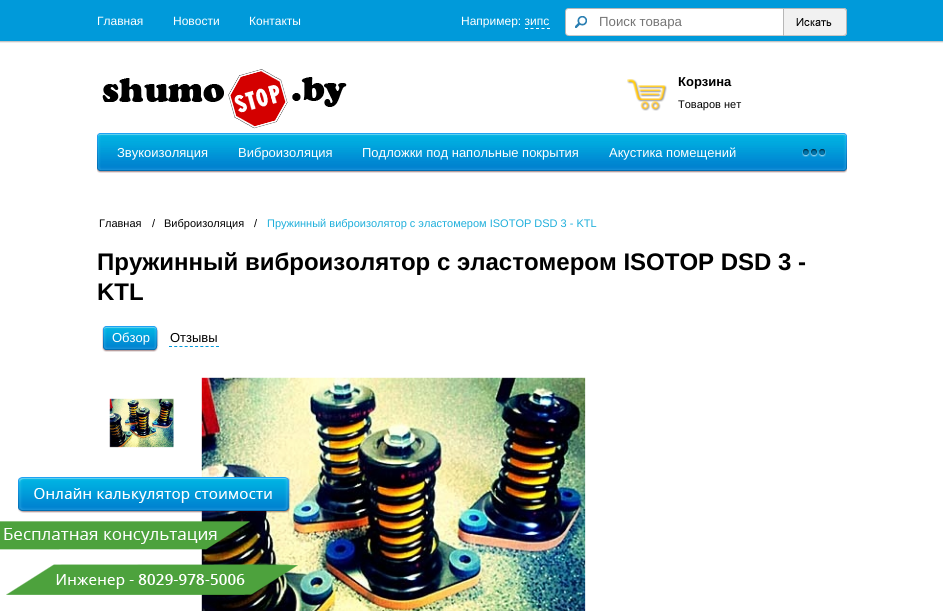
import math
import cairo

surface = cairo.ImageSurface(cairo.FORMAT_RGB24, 943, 611)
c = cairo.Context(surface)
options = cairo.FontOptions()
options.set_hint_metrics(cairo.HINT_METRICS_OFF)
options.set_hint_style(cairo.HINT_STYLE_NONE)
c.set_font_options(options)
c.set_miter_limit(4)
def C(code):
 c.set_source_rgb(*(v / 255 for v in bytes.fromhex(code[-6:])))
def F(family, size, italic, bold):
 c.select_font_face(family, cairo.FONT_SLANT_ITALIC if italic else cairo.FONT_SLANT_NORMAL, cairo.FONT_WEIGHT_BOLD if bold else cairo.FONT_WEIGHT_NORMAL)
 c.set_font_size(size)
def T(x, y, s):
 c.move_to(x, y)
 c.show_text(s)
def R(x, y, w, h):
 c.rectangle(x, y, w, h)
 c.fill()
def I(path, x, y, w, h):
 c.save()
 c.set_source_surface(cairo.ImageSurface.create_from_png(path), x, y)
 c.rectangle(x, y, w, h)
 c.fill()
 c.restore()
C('ffffff')
c.paint()
C('009ada')
R(0,0,943,41)
F('Liberation Sans',12,0,0)
C('ffffff')
T(97,25,'Главная')
T(173,25,'Новости')
T(249,25,'Контакты')
T(461,25,'Например: зипс')
c.new_path()
c.move_to(525,28.5)
c.line_to(550,28.5)
c.set_line_width(1)
c.set_dash([3,2.5])
c.stroke()
I('1.png',565,8,282,28)
I('2.png',575,16,12,12)
F('Liberation Sans',13.25,0,0)
C('757575')
T(599,26,'Поиск товара')
I('3.png',783,8,64,28)
C('c5c5c5')
R(0,41,943,1)
C('ececec')
R(0,42,943,1)
I('4.png',97,133,4,40)
I('5.png',101,133,742,40)
I('6.png',102,69,245,60)
I('7.png',627,79,40,32)
F('Liberation Sans',13,0,1)
C('000000')
T(678,86,'Корзина')
F('Liberation Sans',11,0,0)
T(678,108,'Товаров нет')
F('Liberation Sans',13,0,0)
C('ffffff')
T(117,157,'Звукоизоляция')
T(238,157,'Виброизоляция')
T(362,157,'Подложки под напольные покрытия')
T(609,157,'Акустика помещений')
I('8.png',802,149,24,8)
I('9.png',843,133,4,40)
F('Liberation Sans',11,0,0)
C('000000')
T(99,227,'Главная')
T(152,227,'/')
T(164,227,'Виброизоляция')
T(254,227,'/')
C('1fafdb')
T(267,227,'Пружинный виброизолятор с эластомером ISOTOP DSD 3 - KTL')
F('Liberation Sans',24,0,1)
C('000000')
T(97,270,'Пружинный виброизолятор с эластомером ISOTOP DSD 3 -')
T(97,300,'KTL')
I('10.png',102,326,5,26)
I('11.png',107,326,47,26)
F('Liberation Sans',13,0,0)
C('ffffff')
T(112,342,'Обзор')
I('12.png',154,326,5,26)
c.new_path()
c.move_to(169,346.5)
c.line_to(219,346.5)
C('0399d9')
c.set_dash([3,2.22])
c.stroke()
C('000000')
T(170,342,'Отзывы')
I('13.png',109,398,65,50)
I('14.png',201,377,385,234)
I('15.png',18,477,273,36)
I('16.png',0,521,298,75)
surface.write_to_png('o.png')
